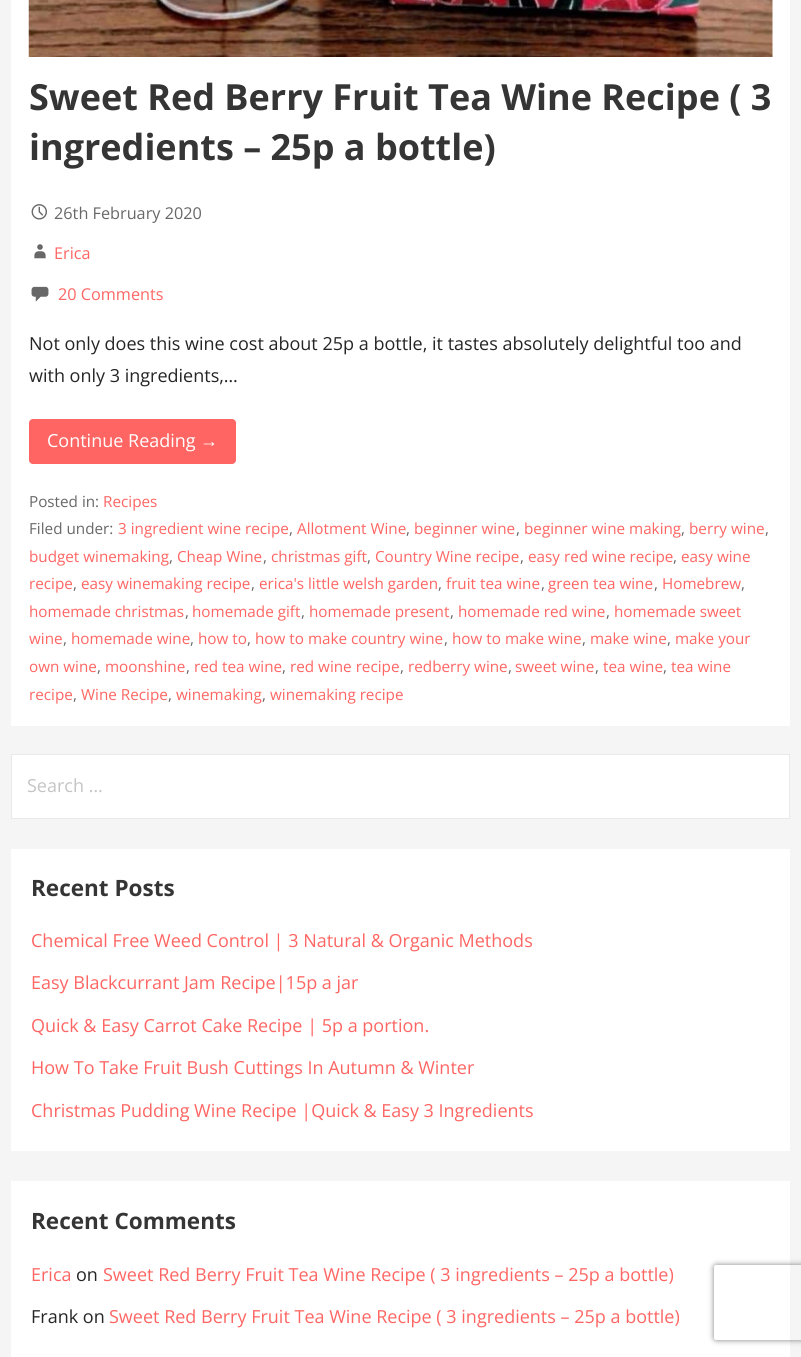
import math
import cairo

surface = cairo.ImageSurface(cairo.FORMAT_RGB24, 801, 1357)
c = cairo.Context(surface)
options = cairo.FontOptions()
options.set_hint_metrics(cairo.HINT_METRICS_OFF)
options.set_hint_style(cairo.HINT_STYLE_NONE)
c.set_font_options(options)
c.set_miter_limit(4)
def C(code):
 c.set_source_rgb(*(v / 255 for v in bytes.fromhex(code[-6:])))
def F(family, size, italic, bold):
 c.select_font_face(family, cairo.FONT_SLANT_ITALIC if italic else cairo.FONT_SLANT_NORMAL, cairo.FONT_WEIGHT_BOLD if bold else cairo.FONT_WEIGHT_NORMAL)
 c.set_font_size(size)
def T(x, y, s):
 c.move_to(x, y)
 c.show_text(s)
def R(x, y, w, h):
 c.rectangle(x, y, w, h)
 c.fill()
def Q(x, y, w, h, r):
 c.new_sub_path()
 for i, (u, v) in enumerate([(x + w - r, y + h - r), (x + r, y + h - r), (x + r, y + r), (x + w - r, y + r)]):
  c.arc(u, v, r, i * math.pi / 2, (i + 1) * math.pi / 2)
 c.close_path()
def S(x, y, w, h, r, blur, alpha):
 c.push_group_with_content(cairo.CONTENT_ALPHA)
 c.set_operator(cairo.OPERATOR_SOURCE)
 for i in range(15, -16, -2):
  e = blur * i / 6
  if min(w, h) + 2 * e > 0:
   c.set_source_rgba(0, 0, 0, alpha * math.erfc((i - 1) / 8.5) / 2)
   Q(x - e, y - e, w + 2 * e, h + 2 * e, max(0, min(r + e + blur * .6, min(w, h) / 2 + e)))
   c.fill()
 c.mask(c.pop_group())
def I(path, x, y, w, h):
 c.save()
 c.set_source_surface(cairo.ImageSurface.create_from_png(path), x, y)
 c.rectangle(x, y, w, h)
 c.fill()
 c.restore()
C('f5f5f5')
c.paint()
C('ffffff')
R(11,0,779,726)
I('1.png',28,0,745,57)
F('Open Sans',36,0,1)
C('353535')
T(29,110,'Sweet Red Berry Fruit Tea Wine Recipe ( 3')
T(29,160,'ingredients – 25p a bottle)')
I('2.png',31,204,16,16)
F('Open Sans',16.25,0,0)
C('686868')
T(54,219,'26th February 2020')
I('3.png',34,244,12,15)
C('ff6663')
T(54,259,'Erica')
I('4.png',31,286,18,16)
T(58,300,'20 Comments')
F('Open Sans',18,0,0)
C('252525')
T(29,350,'Not only does this wine cost about 25p a bottle, it tastes absolutely delightful too and')
T(29,382,'with only 3 ingredients,…')
C('ff6663')
Q(29,419,207,45,4)
c.fill()
C('ffffff')
T(47,447,'Continue Reading')
F('Liberation Sans',18,0,0)
T(200,447,'→')
F('Open Sans',15.25,0,0)
C('686868')
T(29,507,'Posted in:')
C('ff6663')
T(103,507,'Recipes')
C('686868')
T(29,534,'Filed under:')
C('ff6663')
T(118,534,'3 ingredient wine recipe')
C('686868')
T(289,534,',')
C('ff6663')
T(297,534,'Allotment Wine')
C('686868')
T(406,534,',')
C('ff6663')
T(414,534,'beginner wine')
C('686868')
T(516,534,',')
C('ff6663')
T(524,534,'beginner wine making')
C('686868')
T(681,534,',')
C('ff6663')
T(689,534,'berry wine')
C('686868')
T(765,534,',')
C('ff6663')
T(29,562,'budget winemaking')
C('686868')
T(169,562,',')
C('ff6663')
T(177,562,'Cheap Wine')
C('686868')
T(263,562,',')
C('ff6663')
T(271,562,'christmas gift')
C('686868')
T(367,562,',')
C('ff6663')
T(375,562,'Country Wine recipe')
C('686868')
T(520,562,',')
C('ff6663')
T(528,562,'easy red wine recipe')
C('686868')
T(673,562,',')
C('ff6663')
T(681,562,'easy wine')
T(29,589,'recipe')
C('686868')
T(73,589,',')
C('ff6663')
T(81,589,'easy winemaking recipe')
C('686868')
T(251,589,',')
C('ff6663')
T(259,589,'erica\'s little welsh garden')
C('686868')
T(438,589,',')
C('ff6663')
T(446,589,'fruit tea wine')
C('686868')
T(541,589,',')
C('ff6663')
T(548,589,'green tea wine')
C('686868')
T(654,589,',')
C('ff6663')
T(662,589,'Homebrew')
C('686868')
T(741,589,',')
C('ff6663')
T(29,617,'homemade christmas')
C('686868')
T(185,617,',')
C('ff6663')
T(192,617,'homemade gift')
C('686868')
T(301,617,',')
C('ff6663')
T(309,617,'homemade present')
C('686868')
T(450,617,',')
C('ff6663')
T(458,617,'homemade red wine')
C('686868')
T(606,617,',')
C('ff6663')
T(614,617,'homemade sweet')
T(29,644,'wine')
C('686868')
T(63,644,',')
C('ff6663')
T(71,644,'homemade wine')
C('686868')
T(190,644,',')
C('ff6663')
T(198,644,'how to')
C('686868')
T(247,644,',')
C('ff6663')
T(255,644,'how to make country wine')
C('686868')
T(444,644,',')
C('ff6663')
T(452,644,'how to make wine')
C('686868')
T(582,644,',')
C('ff6663')
T(590,644,'make wine')
C('686868')
T(667,644,',')
C('ff6663')
T(675,644,'make your')
T(29,672,'own wine')
C('686868')
T(97,672,',')
C('ff6663')
T(105,672,'moonshine')
C('686868')
T(186,672,',')
C('ff6663')
T(194,672,'red tea wine')
C('686868')
T(282,672,',')
C('ff6663')
T(290,672,'red wine recipe')
C('686868')
T(400,672,',')
C('ff6663')
T(408,672,'redberry wine')
C('686868')
T(508,672,',')
C('ff6663')
T(515,672,'sweet wine')
C('686868')
T(595,672,',')
C('ff6663')
T(603,672,'tea wine')
C('686868')
T(663,672,',')
C('ff6663')
T(671,672,'tea wine')
T(29,700,'recipe')
C('686868')
T(73,700,',')
C('ff6663')
T(81,700,'Wine Recipe')
C('686868')
T(168,700,',')
C('ff6663')
T(176,700,'winemaking')
C('686868')
T(262,700,',')
C('ff6663')
T(270,700,'winemaking recipe')
C('ffffff')
c.rectangle(11.5,754.5,778,64)
c.fill_preserve()
C('e9e9e9')
c.set_line_width(1)
c.stroke()
F('Open Sans',18,0,0)
C('c4c4c4')
T(27,792,'Search …')
C('ffffff')
R(11,849,779,302)
F('Open Sans',22.5,0,1)
C('353535')
T(31,896,'Recent Posts')
F('Open Sans',18,0,0)
C('ff6663')
T(31,947,'Chemical Free Weed Control | 3 Natural & Organic Methods')
T(31,989,'Easy Blackcurrant Jam Recipe|15p a jar')
T(31,1032,'Quick & Easy Carrot Cake Recipe | 5p a portion.')
T(31,1074,'How To Take Fruit Bush Cuttings In Autumn & Winter')
T(31,1117,'Christmas Pudding Wine Recipe |Quick & Easy 3 Ingredients')
C('ffffff')
R(11,1181,779,176)
F('Open Sans',22.5,0,1)
C('353535')
T(31,1229,'Recent Comments')
F('Open Sans',18,0,0)
C('ff6663')
T(31,1281,'Erica')
C('252525')
T(76,1281,'on')
C('ff6663')
T(103,1281,'Sweet Red Berry Fruit Tea Wine Recipe ( 3 ingredients – 25p a bottle)')
C('252525')
T(31,1323,'Frank on')
C('ff6663')
T(109,1323,'Sweet Red Berry Fruit Tea Wine Recipe ( 3 ingredients – 25p a bottle)')
c.save()
c.set_fill_rule(cairo.FILL_RULE_EVEN_ODD)
c.new_path()
c.move_to(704,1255)
c.line_to(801,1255)
c.line_to(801,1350)
c.line_to(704,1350)
c.close_path()
c.move_to(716.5,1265)
c.line_to(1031.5,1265)
c.curve_to(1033,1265,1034,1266,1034,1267.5)
c.line_to(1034,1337.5)
c.curve_to(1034,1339,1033,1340,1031.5,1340)
c.line_to(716.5,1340)
c.curve_to(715,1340,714,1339,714,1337.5)
c.line_to(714,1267.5)
c.curve_to(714,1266,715,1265,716.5,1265)
c.close_path()
c.clip()
C('808080')
S(714,1265,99,75,2.5,3,1)
c.restore()
surface.write_to_png('o.png')
